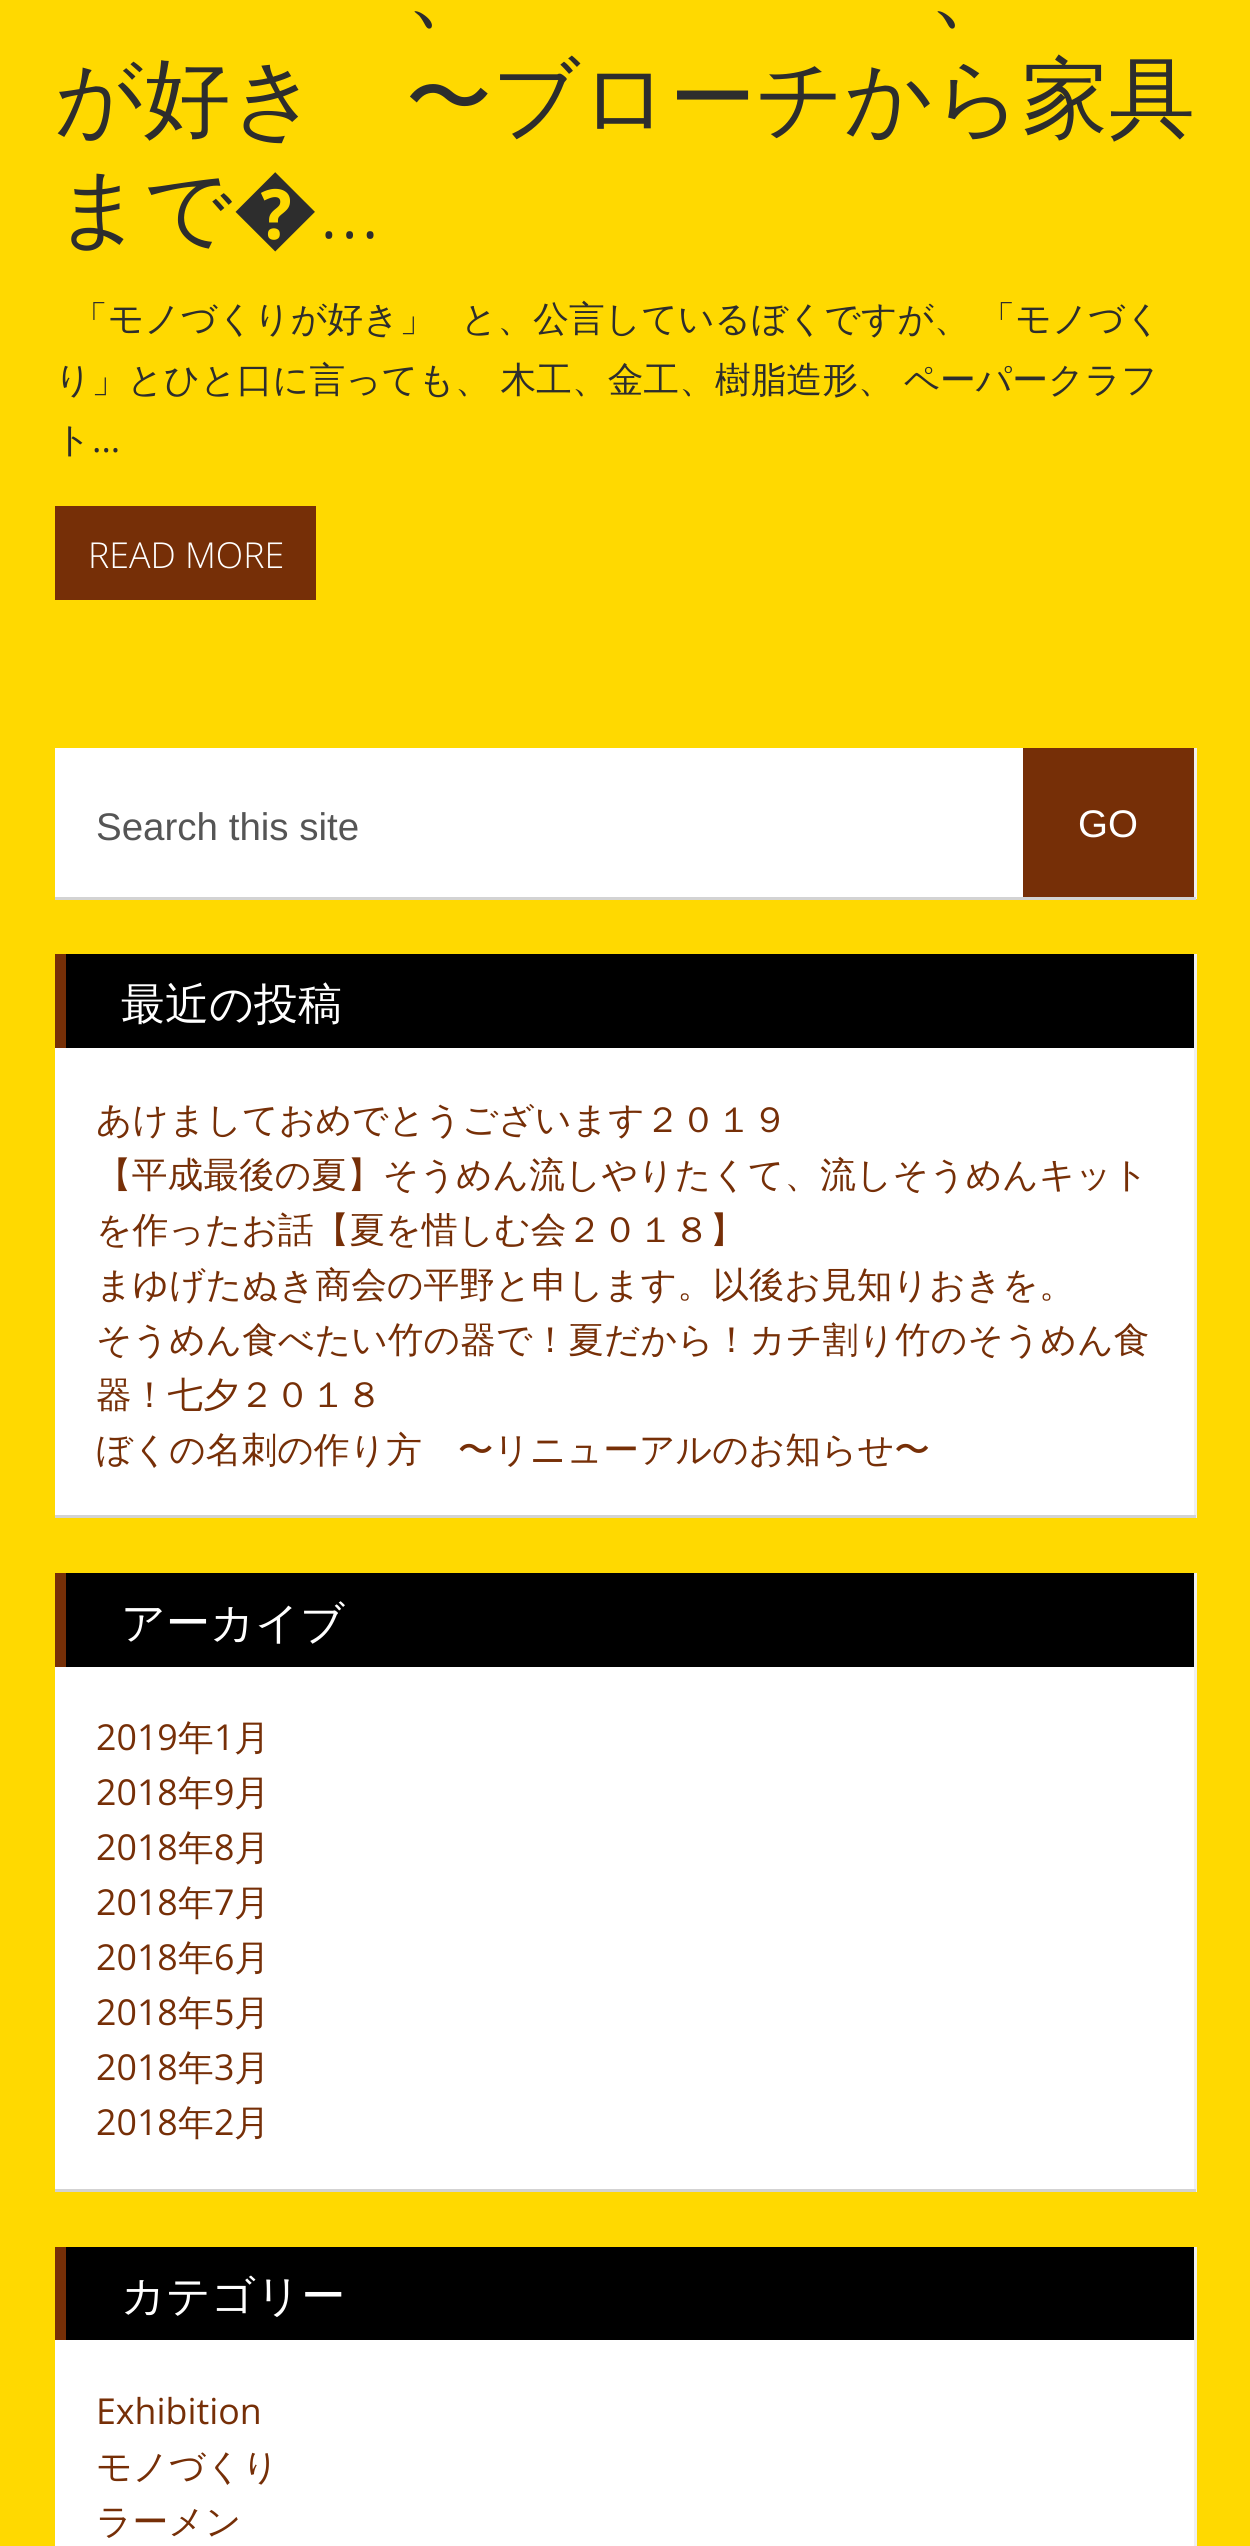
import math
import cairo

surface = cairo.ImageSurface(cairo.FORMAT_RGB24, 1250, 2546)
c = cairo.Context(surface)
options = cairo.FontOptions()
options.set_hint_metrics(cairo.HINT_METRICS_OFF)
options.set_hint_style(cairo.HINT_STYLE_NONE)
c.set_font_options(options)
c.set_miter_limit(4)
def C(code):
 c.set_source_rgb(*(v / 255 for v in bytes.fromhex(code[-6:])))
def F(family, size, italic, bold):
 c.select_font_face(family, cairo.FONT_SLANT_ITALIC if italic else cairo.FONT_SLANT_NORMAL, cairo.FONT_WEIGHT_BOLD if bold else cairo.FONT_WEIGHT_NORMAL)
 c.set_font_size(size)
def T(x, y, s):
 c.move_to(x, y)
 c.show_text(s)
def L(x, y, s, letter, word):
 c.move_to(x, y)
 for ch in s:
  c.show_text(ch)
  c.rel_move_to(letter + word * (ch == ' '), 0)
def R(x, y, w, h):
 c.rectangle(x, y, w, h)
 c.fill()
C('ffd900')
c.paint()
F('WenQuanYi Zen Hei Medium',86.6,0,0)
C('2d2d2d')
T(406,18,'、')
T(929,18,'、')
T(55,128,'が好き　〜ブローチから家具')
T(55,238,'まで')
F('Open Sans Light',86.6,0,0)
T(232,238,'�...')
F('WenQuanYi Zen Hei Medium',35.75,0,0)
T(72,331,'「モノづくりが好き」')
L(461,331,'と、公言しているぼくですが、 「モノづく',0,-1)
L(55,392,'り」とひと口に言っても、 木工、金工、樹脂造形、 ペーパークラフ',0,-1)
T(55,452,'ト')
F('Open Sans',35.75,0,0)
T(92,452,'...')
C('762f07')
R(55,506,261,94)
F('Open Sans Light',35.75,0,0)
C('ffffff')
T(88,568,'READ MORE')
R(55,748,968,149)
C('f0f0f0')
R(1194,748,3,151)
C('d3d3d3')
R(55,897,1141,3)
F('Liberation Sans',38.5,0,0)
C('555555')
T(96,840,'Search this site')
C('762f07')
R(1023,748,171,149)
C('ffffff')
T(1078,837,'GO')
R(55,1048,1139,467)
C('f0f0f0')
R(1194,954,3,564)
C('d3d3d3')
R(55,1515,1141,3)
C('000000')
R(66,954,1128,94)
C('762f07')
R(55,954,11,94)
F('WenQuanYi Zen Hei Medium',44,0,0)
C('ffffff')
T(121,1019,'最近の投稿')
F('WenQuanYi Zen Hei Medium',35.75,0,0)
C('762f07')
T(96,1132,'あけましておめでとうございます２０１９')
T(96,1187,'【平成最後の夏】そうめん流しやりたくて、流しそうめんキット')
T(96,1242,'を作ったお話【夏を惜しむ会２０１８】')
T(96,1297,'まゆげたぬき商会の平野と申します。以後お見知りおきを。')
T(96,1352,'そうめん食べたい竹の器で！夏だから！カチ割り竹のそうめん食')
T(96,1407,'器！七夕２０１８')
T(96,1462,'ぼくの名刺の作り方　〜リニューアルのお知らせ〜')
C('ffffff')
R(55,1667,1139,522)
C('f0f0f0')
R(1194,1573,3,619)
C('d3d3d3')
R(55,2189,1141,3)
C('000000')
R(66,1573,1128,94)
C('762f07')
R(55,1573,11,94)
F('WenQuanYi Zen Hei Medium',44,0,0)
C('ffffff')
T(121,1638,'アーカイブ')
F('Open Sans',35.75,0,0)
C('762f07')
T(96,1750,'2019')
F('WenQuanYi Zen Hei Medium',35.75,0,0)
T(178,1750,'年')
F('Open Sans',35.75,0,0)
T(214,1750,'1')
F('WenQuanYi Zen Hei Medium',35.75,0,0)
T(234,1750,'月')
F('Open Sans',35.75,0,0)
T(96,1805,'2018')
F('WenQuanYi Zen Hei Medium',35.75,0,0)
T(178,1805,'年')
F('Open Sans',35.75,0,0)
T(214,1805,'9')
F('WenQuanYi Zen Hei Medium',35.75,0,0)
T(234,1805,'月')
F('Open Sans',35.75,0,0)
T(96,1860,'2018')
F('WenQuanYi Zen Hei Medium',35.75,0,0)
T(178,1860,'年')
F('Open Sans',35.75,0,0)
T(214,1860,'8')
F('WenQuanYi Zen Hei Medium',35.75,0,0)
T(234,1860,'月')
F('Open Sans',35.75,0,0)
T(96,1915,'2018')
F('WenQuanYi Zen Hei Medium',35.75,0,0)
T(178,1915,'年')
F('Open Sans',35.75,0,0)
T(214,1915,'7')
F('WenQuanYi Zen Hei Medium',35.75,0,0)
T(234,1915,'月')
F('Open Sans',35.75,0,0)
T(96,1970,'2018')
F('WenQuanYi Zen Hei Medium',35.75,0,0)
T(178,1970,'年')
F('Open Sans',35.75,0,0)
T(214,1970,'6')
F('WenQuanYi Zen Hei Medium',35.75,0,0)
T(234,1970,'月')
F('Open Sans',35.75,0,0)
T(96,2025,'2018')
F('WenQuanYi Zen Hei Medium',35.75,0,0)
T(178,2025,'年')
F('Open Sans',35.75,0,0)
T(214,2025,'5')
F('WenQuanYi Zen Hei Medium',35.75,0,0)
T(234,2025,'月')
F('Open Sans',35.75,0,0)
T(96,2080,'2018')
F('WenQuanYi Zen Hei Medium',35.75,0,0)
T(178,2080,'年')
F('Open Sans',35.75,0,0)
T(214,2080,'3')
F('WenQuanYi Zen Hei Medium',35.75,0,0)
T(234,2080,'月')
F('Open Sans',35.75,0,0)
T(96,2135,'2018')
F('WenQuanYi Zen Hei Medium',35.75,0,0)
T(178,2135,'年')
F('Open Sans',35.75,0,0)
T(214,2135,'2')
F('WenQuanYi Zen Hei Medium',35.75,0,0)
T(234,2135,'月')
C('ffffff')
R(55,2340,1139,206)
C('f0f0f0')
R(1194,2247,3,299)
C('000000')
R(66,2247,1128,93)
C('762f07')
R(55,2247,11,93)
F('WenQuanYi Zen Hei Medium',44,0,0)
C('ffffff')
T(121,2311,'カテゴリー')
F('Open Sans',35.75,0,0)
C('762f07')
T(96,2424,'Exhibition')
F('WenQuanYi Zen Hei Medium',35.75,0,0)
T(96,2479,'モノづくり')
T(96,2534,'ラーメン')
surface.write_to_png('o.png')
